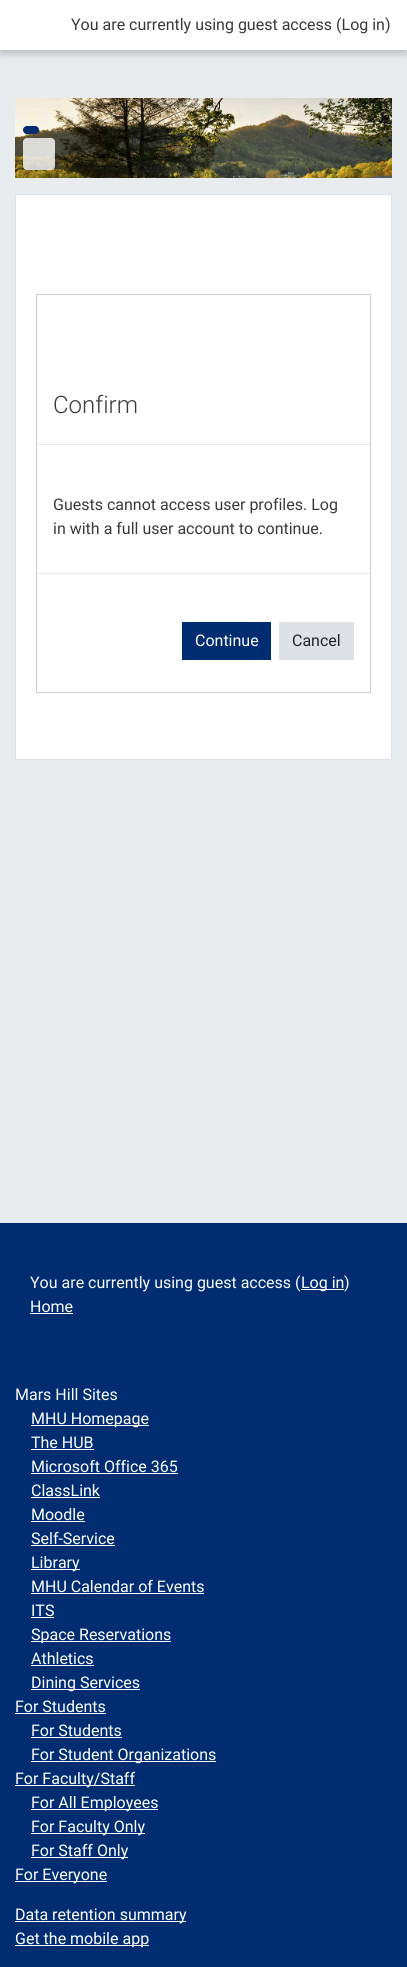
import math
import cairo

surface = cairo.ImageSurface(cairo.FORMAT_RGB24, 407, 1967)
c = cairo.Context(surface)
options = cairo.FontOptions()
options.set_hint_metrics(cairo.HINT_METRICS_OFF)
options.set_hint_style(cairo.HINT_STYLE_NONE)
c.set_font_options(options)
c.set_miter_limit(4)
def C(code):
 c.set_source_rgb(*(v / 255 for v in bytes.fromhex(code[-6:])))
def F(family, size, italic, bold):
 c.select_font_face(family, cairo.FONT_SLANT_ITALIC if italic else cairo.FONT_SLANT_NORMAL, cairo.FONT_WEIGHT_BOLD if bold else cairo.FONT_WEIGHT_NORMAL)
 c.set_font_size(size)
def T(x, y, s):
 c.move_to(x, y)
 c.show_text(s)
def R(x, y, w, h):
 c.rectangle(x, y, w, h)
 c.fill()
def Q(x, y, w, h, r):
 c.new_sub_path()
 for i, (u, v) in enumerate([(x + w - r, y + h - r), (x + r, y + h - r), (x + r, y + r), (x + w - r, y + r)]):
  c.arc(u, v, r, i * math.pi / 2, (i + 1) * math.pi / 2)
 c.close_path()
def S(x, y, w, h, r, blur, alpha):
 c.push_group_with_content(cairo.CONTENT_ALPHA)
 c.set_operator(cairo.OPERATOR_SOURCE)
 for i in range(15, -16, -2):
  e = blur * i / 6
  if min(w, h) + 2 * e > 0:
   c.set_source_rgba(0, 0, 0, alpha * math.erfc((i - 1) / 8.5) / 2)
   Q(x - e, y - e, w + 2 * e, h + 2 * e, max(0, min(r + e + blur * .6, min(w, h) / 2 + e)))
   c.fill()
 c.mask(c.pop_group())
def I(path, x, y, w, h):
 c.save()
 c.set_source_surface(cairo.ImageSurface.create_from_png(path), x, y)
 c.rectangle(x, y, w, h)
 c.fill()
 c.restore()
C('e9ecef')
c.paint()
C('000000')
S(0,4,407,50,0,4,.2)
C('fefefe')
R(0,0,407,50)
F('Roboto',16,0,0)
C('373a3c')
T(71,30,'You are currently using guest access (Log in)')
I('1.png',15,98,377,80)
C('002d72')
Q(23,126,16,8,4)
c.fill()
c.set_source_rgba(1,1,1,0.8)
Q(23,138,32,32,4)
c.fill()
C('ffffff')
c.rectangle(15.5,194.5,376,565)
c.fill_preserve()
C('dee2e6')
c.set_line_width(1)
c.stroke()
c.rectangle(36.5,294.5,334,398)
C('cccccc')
c.stroke()
C('e9ecef')
R(37,444,333,1)
F('Roboto Light',24,0,0)
C('373a3c')
T(53,413,'Confirm')
F('Roboto',16,0,0)
T(53,510,'Guests cannot access user profiles. Log')
T(53,534,'in with a full user account to continue.')
C('e9ecef')
R(37,573,333,1)
C('002d72')
R(182,622,89,38)
C('ffffff')
T(195,646,'Continue')
C('dee2e6')
R(279,622,75,38)
C('212529')
T(292,646,'Cancel')
C('002d72')
R(0,1223,407,744)
C('f8f9fa')
T(30,1288,'You are currently using guest access (')
C('ffffff')
R(301,1289,43,1)
T(301,1288,'Log in')
C('f8f9fa')
T(344,1288,')')
C('ffffff')
T(30,1312,'Home')
R(30,1313,43,1)
C('f8f9fa')
T(15,1400,'Mars Hill Sites')
C('ffffff')
R(31,1425,118,1)
T(31,1424,'MHU Homepage')
T(31,1448,'The HUB')
R(31,1449,63,1)
T(31,1472,'Microsoft Office 365')
R(31,1473,147,1)
T(31,1496,'ClassLink')
R(31,1497,69,1)
T(31,1520,'Moodle')
R(31,1521,54,1)
T(31,1544,'Self-Service')
R(31,1545,84,1)
R(31,1569,49,1)
T(31,1568,'Library')
T(31,1592,'MHU Calendar of Events')
R(31,1593,173,1)
T(31,1616,'ITS')
R(31,1617,23,1)
R(31,1641,140,1)
T(31,1640,'Space Reservations')
T(31,1664,'Athletics')
R(31,1665,63,1)
R(31,1689,109,1)
T(31,1688,'Dining Services')
T(15,1712,'For Students')
R(15,1713,91,1)
T(31,1736,'For Students')
R(31,1737,91,1)
R(31,1761,185,1)
T(31,1760,'For Student Organizations')
R(15,1785,120,1)
T(15,1784,'For Faculty/Staff')
R(31,1809,127,1)
T(31,1808,'For All Employees')
R(31,1833,114,1)
T(31,1832,'For Faculty Only')
R(31,1857,97,1)
T(31,1856,'For Staff Only')
R(15,1881,92,1)
T(15,1880,'For Everyone')
R(15,1921,171,1)
T(15,1920,'Data retention summary')
R(15,1945,134,1)
T(15,1944,'Get the mobile app')
surface.write_to_png('o.png')
